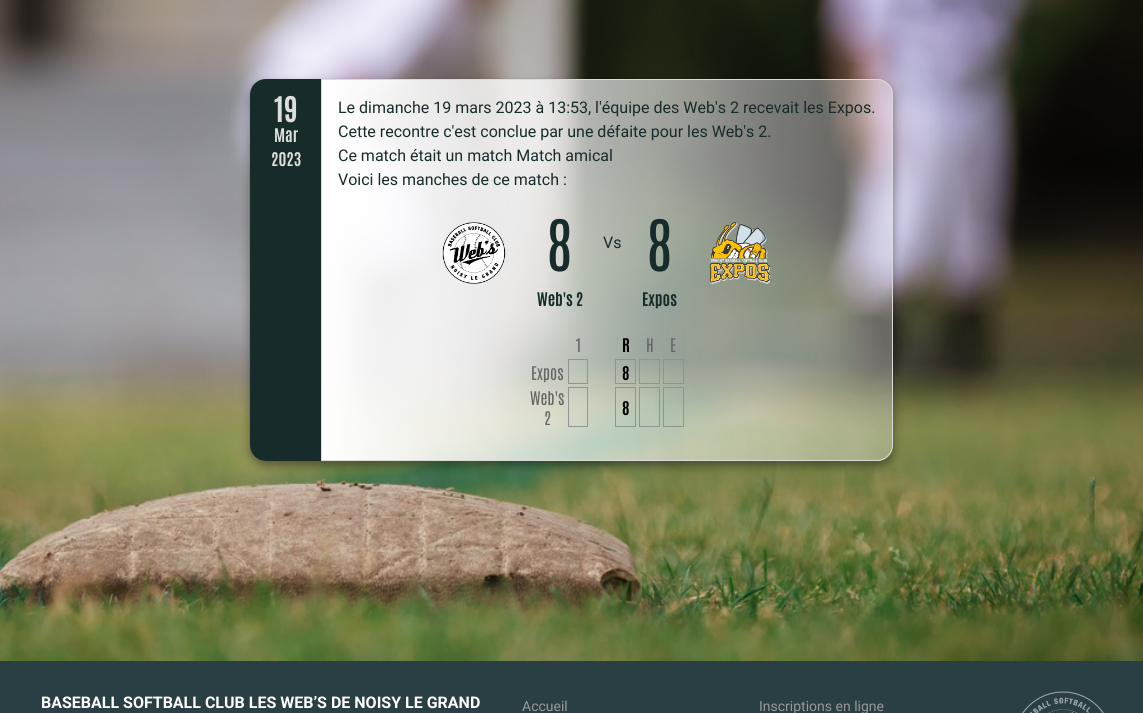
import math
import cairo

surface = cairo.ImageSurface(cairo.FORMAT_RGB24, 1143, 713)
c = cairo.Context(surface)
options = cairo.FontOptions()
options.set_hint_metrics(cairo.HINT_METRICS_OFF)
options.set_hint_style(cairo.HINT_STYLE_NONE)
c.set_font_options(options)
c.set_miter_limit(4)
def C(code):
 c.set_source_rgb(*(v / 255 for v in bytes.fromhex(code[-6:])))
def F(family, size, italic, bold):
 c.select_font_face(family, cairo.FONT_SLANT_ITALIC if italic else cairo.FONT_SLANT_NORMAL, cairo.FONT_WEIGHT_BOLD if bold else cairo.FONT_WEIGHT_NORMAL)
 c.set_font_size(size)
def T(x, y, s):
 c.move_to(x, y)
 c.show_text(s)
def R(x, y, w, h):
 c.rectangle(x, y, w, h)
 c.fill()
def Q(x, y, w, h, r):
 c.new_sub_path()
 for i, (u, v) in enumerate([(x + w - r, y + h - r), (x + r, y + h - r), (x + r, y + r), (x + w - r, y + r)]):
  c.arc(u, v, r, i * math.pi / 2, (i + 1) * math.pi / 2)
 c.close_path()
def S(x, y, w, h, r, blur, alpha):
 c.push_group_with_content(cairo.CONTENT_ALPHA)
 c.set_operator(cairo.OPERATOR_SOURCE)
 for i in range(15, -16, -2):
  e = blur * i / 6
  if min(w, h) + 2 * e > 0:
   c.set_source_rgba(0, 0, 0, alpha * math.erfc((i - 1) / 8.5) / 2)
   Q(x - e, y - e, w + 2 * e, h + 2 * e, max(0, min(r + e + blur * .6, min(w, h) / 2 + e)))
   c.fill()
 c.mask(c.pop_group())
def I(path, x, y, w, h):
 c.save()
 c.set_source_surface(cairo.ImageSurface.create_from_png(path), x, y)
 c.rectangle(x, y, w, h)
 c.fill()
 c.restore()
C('ffffff')
c.paint()
I('1.png',0,0,1143,661)
c.save()
c.set_fill_rule(cairo.FILL_RULE_EVEN_ODD)
c.new_path()
c.move_to(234,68)
c.line_to(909,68)
c.line_to(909,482)
c.line_to(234,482)
c.close_path()
c.move_to(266,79)
c.line_to(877,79)
c.curve_to(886,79,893,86,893,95)
c.line_to(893,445)
c.curve_to(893,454,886,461,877,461)
c.line_to(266,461)
c.curve_to(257,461,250,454,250,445)
c.line_to(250,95)
c.curve_to(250,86,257,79,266,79)
c.close_path()
c.clip()
C('000000')
S(250,84,643,382,16,5,.4)
c.restore()
C('172c2a')
c.new_path()
c.move_to(266,79)
c.line_to(321,79)
c.line_to(321,461)
c.line_to(266,461)
c.curve_to(257,461,250,454,250,445)
c.line_to(250,95)
c.curve_to(250,86,257,79,266,79)
c.close_path()
c.fill()
F('Antonio',30,0,1)
C('dddddd')
T(274,122,'19')
F('Antonio',16,0,1)
T(274,142,'Mar')
T(271,166,'2023')
c.save()
Q(250,79,643,382,16)
c.clip()
c.new_path()
c.move_to(321,79)
c.line_to(877,79)
c.curve_to(886,79,893,86,893,95)
c.line_to(893,445)
c.curve_to(893,454,886,461,877,461)
c.line_to(321,461)
c.close_path()
c.clip()
gradient = cairo.LinearGradient(892,270,322,270)
gradient.add_color_stop_rgba(0,1,1,1,.3)
gradient.add_color_stop_rgba(1,1,1,1,1)
c.set_source(gradient)
R(322,79,570,382)
c.restore()
c.new_path()
c.move_to(321.5,79.5)
c.line_to(877,79.5)
c.curve_to(885.5,79.5,892.5,86.5,892.5,95)
c.line_to(892.5,445)
c.curve_to(892.5,453.5,885.5,460.5,877,460.5)
c.line_to(321.5,460.5)
c.close_path()
C('dbdbdb')
c.set_line_width(1)
c.stroke()
F('Roboto',16,0,0)
C('172c2a')
T(338,113,'Le dimanche 19 mars 2023 à 13:53, l\'équipe des Web\'s 2 recevait les Expos.')
T(338,137,'Cette recontre c\'est conclue par une défaite pour les Web\'s 2.')
T(338,161,'Ce match était un match Match amical')
T(338,185,'Voici les manches de ce match :')
I('2.png',442,222,64,62)
F('Antonio',60,0,0)
T(547,271,'8')
F('Antonio',16,0,1)
T(537,306,'Web\'s 2')
F('Roboto',16,0,0)
T(603,248,'Vs')
F('Antonio',60,0,0)
T(647,271,'8')
F('Antonio',16,0,1)
T(642,306,'Expos')
I('3.png',709,222,62,62)
F('Antonio',16,0,0)
C('666666')
T(575,352,'1')
F('Antonio',16,0,1)
C('000000')
T(622,352,'R')
F('Antonio',16,0,0)
C('666666')
T(646,352,'H')
T(670,352,'E')
T(531,380,'Expos')
c.rectangle(568.5,359.5,19,24)
C('939393')
c.stroke()
c.rectangle(615.5,359.5,20,24)
c.stroke()
F('Antonio',16,0,1)
C('000000')
T(622,380,'8')
c.rectangle(639.5,359.5,20,24)
C('939393')
c.stroke()
c.rectangle(663.5,359.5,20,24)
c.stroke()
F('Antonio',16,0,0)
C('666666')
T(530,405,'Web\'s')
T(544,425,'2')
c.rectangle(568.5,387.5,19,39)
C('939393')
c.stroke()
c.rectangle(615.5,387.5,20,39)
c.stroke()
F('Antonio',16,0,1)
C('000000')
T(622,415,'8')
c.rectangle(639.5,387.5,20,39)
C('939393')
c.stroke()
c.rectangle(663.5,387.5,20,39)
c.stroke()
C('293f43')
R(0,661,1143,52)
F('Roboto',16,0,1)
C('ffffff')
T(41,708,'BASEBALL SOFTBALL CLUB LES WEB’S DE NOISY LE GRAND')
F('Roboto',14,0,0)
C('999999')
T(522,711,'Accueil')
T(759,711,'Inscriptions en ligne')
I('4.png',1022,691,82,22)
surface.write_to_png('o.png')
